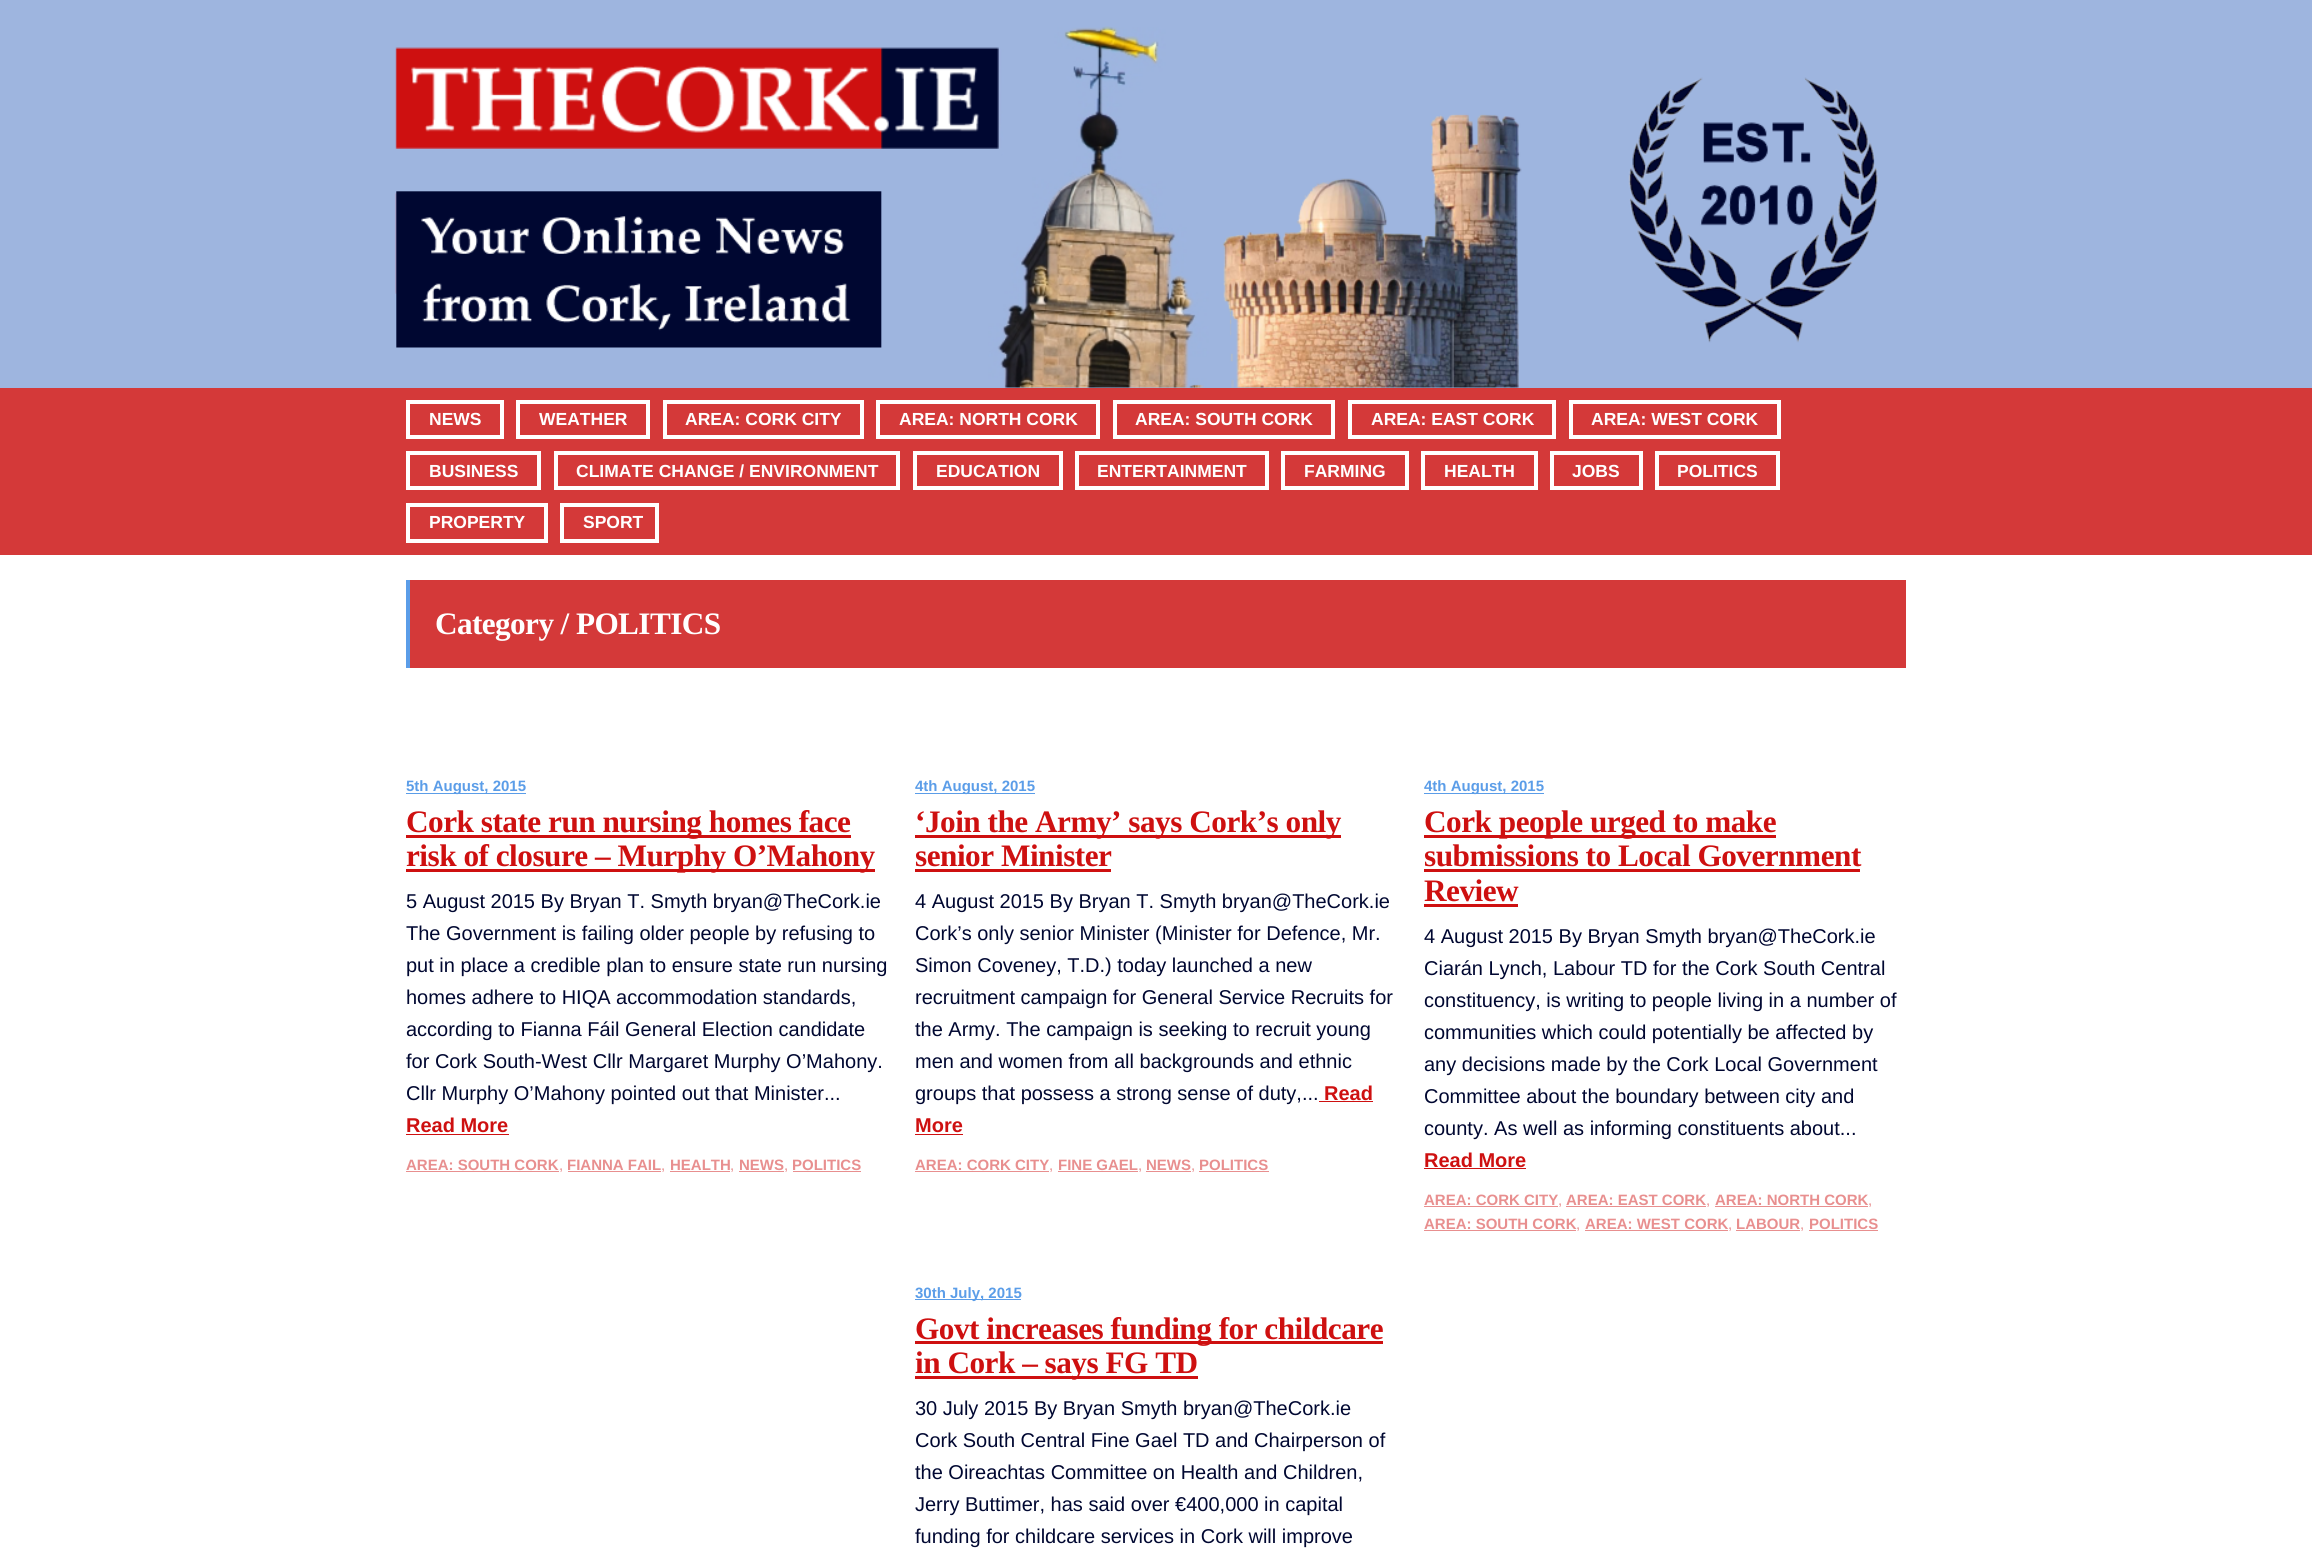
import math
import cairo

surface = cairo.ImageSurface(cairo.FORMAT_RGB24, 2312, 1558)
c = cairo.Context(surface)
options = cairo.FontOptions()
options.set_hint_metrics(cairo.HINT_METRICS_OFF)
options.set_hint_style(cairo.HINT_STYLE_NONE)
c.set_font_options(options)
c.set_miter_limit(4)
def C(code):
 c.set_source_rgb(*(v / 255 for v in bytes.fromhex(code[-6:])))
def F(family, size, italic, bold):
 c.select_font_face(family, cairo.FONT_SLANT_ITALIC if italic else cairo.FONT_SLANT_NORMAL, cairo.FONT_WEIGHT_BOLD if bold else cairo.FONT_WEIGHT_NORMAL)
 c.set_font_size(size)
def T(x, y, s):
 c.move_to(x, y)
 c.show_text(s)
def L(x, y, s, letter, word):
 c.move_to(x, y)
 for ch in s:
  c.show_text(ch)
  c.rel_move_to(letter + word * (ch == ' '), 0)
def R(x, y, w, h):
 c.rectangle(x, y, w, h)
 c.fill()
def I(path, x, y, w, h):
 c.save()
 c.set_source_surface(cairo.ImageSurface.create_from_png(path), x, y)
 c.rectangle(x, y, w, h)
 c.fill()
 c.restore()
C('ffffff')
c.paint()
C('d43939')
R(0,388,2312,167)
C('9eb5df')
R(0,0,2312,388)
I('1.png',395,26,1484,362)
c.rectangle(408,402,94,35)
C('ffffff')
c.set_line_width(4)
c.stroke()
F('Liberation Sans',17.5,0,1)
T(429,425,'NEWS')
c.rectangle(518,402,130,35)
c.stroke()
T(539,425,'WEATHER')
c.rectangle(665,402,197,35)
c.stroke()
T(685,425,'AREA: CORK CITY')
c.rectangle(878,402,220,35)
c.stroke()
T(899,425,'AREA: NORTH CORK')
c.rectangle(1115,402,218,35)
c.stroke()
T(1135,425,'AREA: SOUTH CORK')
c.rectangle(1350,402,204,35)
c.stroke()
T(1371,425,'AREA: EAST CORK')
c.rectangle(1571,402,208,35)
c.stroke()
T(1591,425,'AREA: WEST CORK')
c.rectangle(408,453,131,35)
c.stroke()
T(429,477,'BUSINESS')
c.rectangle(556,453,342,35)
c.stroke()
T(576,477,'CLIMATE CHANGE / ENVIRONMENT')
c.rectangle(915,453,146,35)
c.stroke()
T(936,477,'EDUCATION')
c.rectangle(1077,453,190,35)
c.stroke()
T(1097,477,'ENTERTAINMENT')
c.rectangle(1283,453,124,35)
c.stroke()
T(1304,477,'FARMING')
c.rectangle(1423,453,113,35)
c.stroke()
T(1444,477,'HEALTH')
c.rectangle(1552,453,89,35)
c.stroke()
T(1572,477,'JOBS')
c.rectangle(1657,453,121,35)
c.stroke()
T(1677,477,'POLITICS')
c.rectangle(408,505,138,36)
c.stroke()
T(429,528,'PROPERTY')
c.rectangle(562,505,95,36)
c.stroke()
T(583,528,'SPORT')
C('d43939')
R(410,580,1496,88)
C('5b9de8')
R(406,580,4,88)
F('Liberation Serif',31.25,0,1)
C('ffffff')
L(435,634,'Category / POLITICS',-.6,0)
C('5b9de8')
R(406,793,120,1)
F('Liberation Sans',15,0,1)
T(406,791,'5th August, 2015')
C('ce1010')
R(406,835,445,3)
F('Liberation Serif',31.25,0,1)
L(406,832,'Cork state run nursing homes face',-.5,0)
R(406,869,469,3)
L(406,866,'risk of closure – Murphy O’Mahony',-.5,0)
F('Liberation Sans',20,0,0)
C('000731')
T(406,908,'5 August 2015 By Bryan T. Smyth bryan@TheCork.ie')
T(406,940,'The Government is failing older people by refusing to')
T(406,972,'put in place a credible plan to ensure state run nursing')
T(406,1004,'homes adhere to HIQA accommodation standards,')
T(406,1036,'according to Fianna Fáil General Election candidate')
T(406,1068,'for Cork South-West Cllr Margaret Murphy O’Mahony.')
T(406,1100,'Cllr Murphy O’Mahony pointed out that Minister...')
F('Liberation Sans',20,0,1)
C('ce1010')
T(406,1132,'Read More')
R(406,1134,103,1)
F('Liberation Sans',15,0,1)
C('e88f8f')
T(406,1170,'AREA: SOUTH CORK')
R(406,1171,153,1)
F('Liberation Sans',15,0,0)
T(559,1170,',')
F('Liberation Sans',15,0,1)
T(567,1170,'FIANNA FAIL')
R(568,1171,93,1)
F('Liberation Sans',15,0,0)
T(661,1170,',')
F('Liberation Sans',15,0,1)
T(670,1170,'HEALTH')
R(670,1171,60,1)
F('Liberation Sans',15,0,0)
T(730,1170,',')
F('Liberation Sans',15,0,1)
T(739,1170,'NEWS')
R(739,1171,45,1)
F('Liberation Sans',15,0,0)
T(784,1170,',')
F('Liberation Sans',15,0,1)
T(792,1170,'POLITICS')
R(793,1171,68,1)
C('5b9de8')
R(915,793,120,1)
T(915,791,'4th August, 2015')
C('ce1010')
R(915,835,426,3)
F('Liberation Serif',31.25,0,1)
L(915,832,'‘Join the Army’ says Cork’s only',-.5,0)
L(915,866,'senior Minister',-.5,0)
R(915,869,196,3)
F('Liberation Sans',20,0,0)
C('000731')
T(915,908,'4 August 2015 By Bryan T. Smyth bryan@TheCork.ie')
T(915,940,'Cork’s only senior Minister (Minister for Defence, Mr.')
T(915,972,'Simon Coveney, T.D.) today launched a new')
T(915,1004,'recruitment campaign for General Service Recruits for')
T(915,1036,'the Army. The campaign is seeking to recruit young')
T(915,1068,'men and women from all backgrounds and ethnic')
T(915,1100,'groups that possess a strong sense of duty,...')
F('Liberation Sans',20,0,1)
C('ce1010')
T(1324,1100,'Read')
R(1319,1101,54,1)
T(915,1132,'More')
R(915,1134,48,1)
F('Liberation Sans',15,0,1)
C('e88f8f')
T(915,1170,'AREA: CORK CITY')
R(915,1171,134,1)
F('Liberation Sans',15,0,0)
T(1049,1170,',')
F('Liberation Sans',15,0,1)
T(1058,1170,'FINE GAEL')
R(1058,1171,80,1)
F('Liberation Sans',15,0,0)
T(1138,1170,',')
F('Liberation Sans',15,0,1)
T(1146,1170,'NEWS')
R(1146,1171,45,1)
F('Liberation Sans',15,0,0)
T(1191,1170,',')
F('Liberation Sans',15,0,1)
T(1199,1170,'POLITICS')
R(1199,1171,70,1)
C('5b9de8')
R(1424,793,120,1)
T(1424,791,'4th August, 2015')
C('ce1010')
R(1424,835,352,3)
F('Liberation Serif',31.25,0,1)
L(1424,832,'Cork people urged to make',-.5,0)
L(1424,866,'submissions to Local Government',-.5,0)
R(1424,869,436,3)
L(1424,901,'Review',-.5,0)
R(1424,904,94,3)
F('Liberation Sans',20,0,0)
C('000731')
T(1424,943,'4 August 2015 By Bryan Smyth bryan@TheCork.ie')
T(1424,975,'Ciarán Lynch, Labour TD for the Cork South Central')
T(1424,1007,'constituency, is writing to people living in a number of')
T(1424,1039,'communities which could potentially be affected by')
T(1424,1071,'any decisions made by the Cork Local Government')
T(1424,1103,'Committee about the boundary between city and')
T(1424,1135,'county. As well as informing constituents about...')
F('Liberation Sans',20,0,1)
C('ce1010')
T(1424,1167,'Read More')
R(1424,1168,102,1)
F('Liberation Sans',15,0,1)
C('e88f8f')
T(1424,1205,'AREA: CORK CITY')
R(1424,1206,134,1)
F('Liberation Sans',15,0,0)
T(1558,1205,',')
F('Liberation Sans',15,0,1)
T(1566,1205,'AREA: EAST CORK')
R(1566,1206,140,1)
F('Liberation Sans',15,0,0)
T(1706,1205,',')
F('Liberation Sans',15,0,1)
T(1715,1205,'AREA: NORTH CORK')
R(1715,1206,153,1)
F('Liberation Sans',15,0,0)
T(1868,1205,',')
F('Liberation Sans',15,0,1)
T(1424,1229,'AREA: SOUTH CORK')
R(1424,1230,152,1)
F('Liberation Sans',15,0,0)
T(1576,1229,',')
F('Liberation Sans',15,0,1)
T(1585,1229,'AREA: WEST CORK')
R(1585,1230,143,1)
F('Liberation Sans',15,0,0)
T(1728,1229,',')
F('Liberation Sans',15,0,1)
T(1736,1229,'LABOUR')
R(1736,1230,64,1)
F('Liberation Sans',15,0,0)
T(1800,1229,',')
F('Liberation Sans',15,0,1)
T(1809,1229,'POLITICS')
R(1809,1230,69,1)
C('5b9de8')
R(915,1299,106,1)
T(915,1298,'30th July, 2015')
C('ce1010')
R(915,1341,468,3)
F('Liberation Serif',31.25,0,1)
L(915,1339,'Govt increases funding for childcare',-.5,0)
R(915,1376,283,3)
L(915,1373,'in Cork – says FG TD',-.5,0)
F('Liberation Sans',20,0,0)
C('000731')
T(915,1415,'30 July 2015 By Bryan Smyth bryan@TheCork.ie')
T(915,1447,'Cork South Central Fine Gael TD and Chairperson of')
T(915,1479,'the Oireachtas Committee on Health and Children,')
T(915,1511,'Jerry Buttimer, has said over €400,000 in capital')
T(915,1543,'funding for childcare services in Cork will improve')
surface.write_to_png('o.png')
